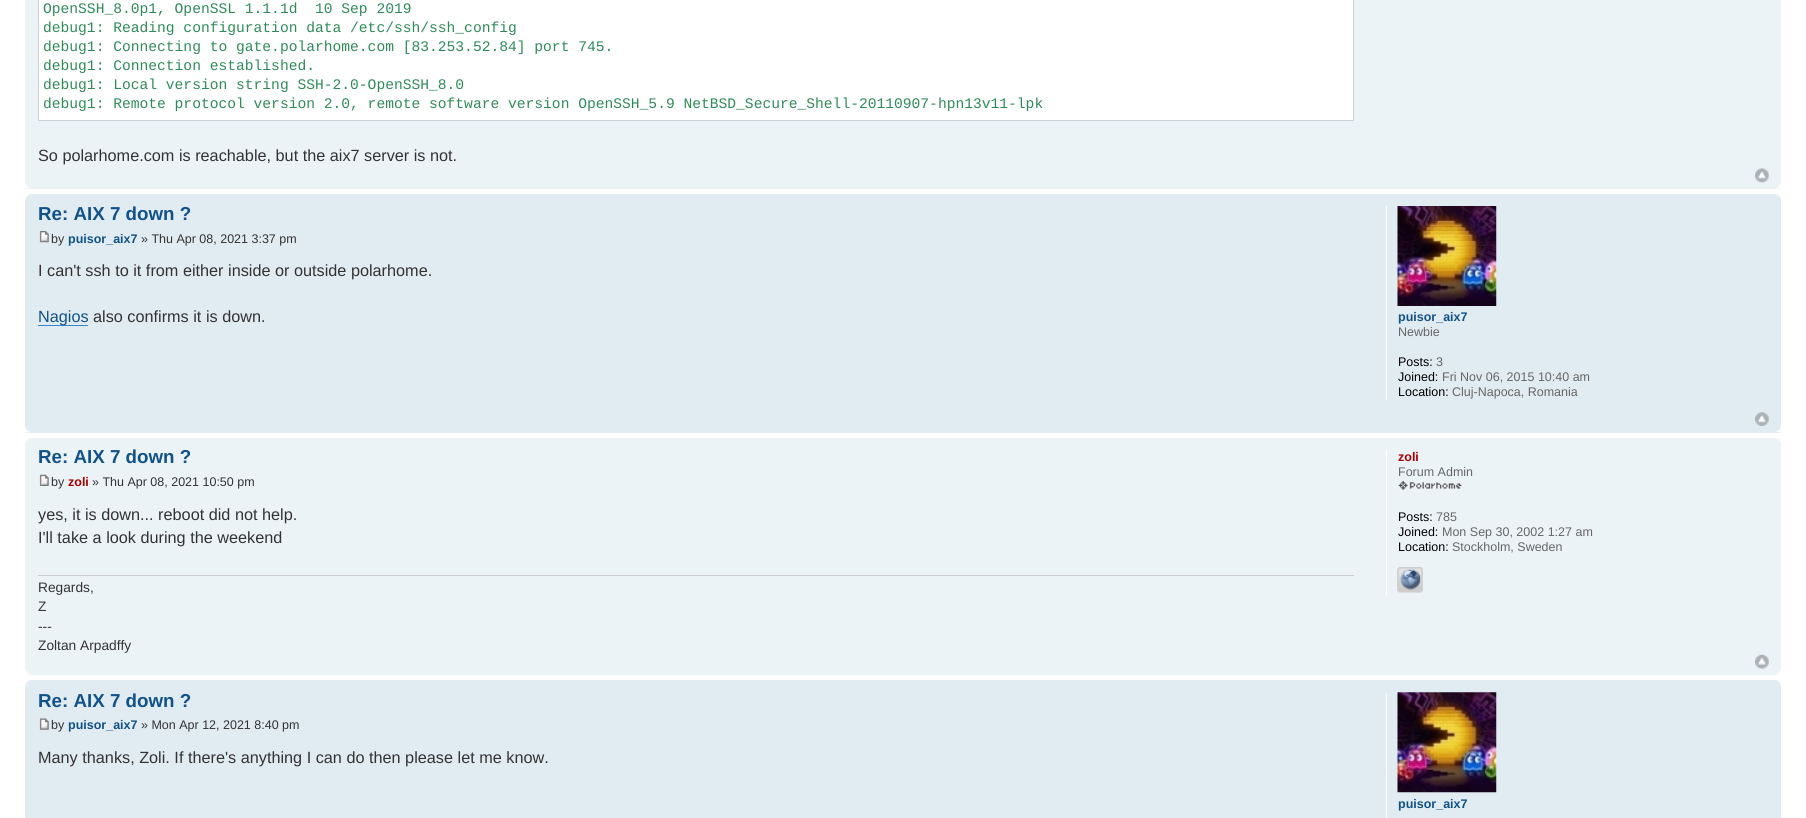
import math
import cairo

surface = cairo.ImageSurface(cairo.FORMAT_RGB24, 1806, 818)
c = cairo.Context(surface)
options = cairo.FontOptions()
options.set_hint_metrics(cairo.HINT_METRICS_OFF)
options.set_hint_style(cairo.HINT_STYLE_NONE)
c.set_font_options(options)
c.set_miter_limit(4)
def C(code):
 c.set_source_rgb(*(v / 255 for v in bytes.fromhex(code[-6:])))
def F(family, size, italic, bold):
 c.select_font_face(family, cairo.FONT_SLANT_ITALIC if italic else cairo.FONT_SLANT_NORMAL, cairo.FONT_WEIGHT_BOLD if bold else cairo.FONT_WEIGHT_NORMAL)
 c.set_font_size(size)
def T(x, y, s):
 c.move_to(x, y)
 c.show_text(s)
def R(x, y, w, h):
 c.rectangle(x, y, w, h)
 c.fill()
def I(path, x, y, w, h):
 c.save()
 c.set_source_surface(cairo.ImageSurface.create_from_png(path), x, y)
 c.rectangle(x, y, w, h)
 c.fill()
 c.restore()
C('ffffff')
c.paint()
C('ecf3f7')
R(25,0,1756,189)
C('ffffff')
c.rectangle(38.5,-.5,1315,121)
c.fill_preserve()
C('c9d2d8')
c.set_line_width(1)
c.stroke()
F('Liberation Mono',14.62,0,0)
C('2e8b57')
T(43,13,'OpenSSH_8.0p1, OpenSSL 1.1.1d  10 Sep 2019')
T(43,32,'debug1: Reading configuration data /etc/ssh/ssh_config')
T(43,51,'debug1: Connecting to gate.polarhome.com [83.253.52.84] port 745.')
T(43,70,'debug1: Connection established.')
T(43,89,'debug1: Local version string SSH-2.0-OpenSSH_8.0')
T(43,108,'debug1: Remote protocol version 2.0, remote software version OpenSSH_5.9 NetBSD_Secure_Shell-20110907-hpn13v11-lpk')
F('Liberation Sans',16.25,0,0)
C('333333')
T(38,161,'So polarhome.com is reachable, but the aix7 server is not.')
I('1.png',1755,168,14,15)
I('2.png',25,183,5,6)
I('3.png',1776,183,5,6)
C('e1ebf2')
R(25,194,1756,239)
I('4.png',25,194,6,6)
I('5.png',1775,194,6,6)
F('Liberation Sans',18.75,0,1)
C('105289')
T(38,220,'Re: AIX 7 down ?')
I('6.png',39,231,10,12)
F('Liberation Sans',12.5,0,0)
C('333333')
T(51,243,'by')
F('Liberation Sans',12.5,0,1)
C('105289')
T(68,243,'puisor_aix7')
F('Liberation Sans',12.5,0,0)
C('333333')
T(141,243,'» Thu Apr 08, 2021 3:37 pm')
F('Liberation Sans',16.25,0,0)
T(38,276,'I can\'t ssh to it from either inside or outside polarhome.')
C('368ad2')
R(38,325,50,1)
C('105289')
T(38,322,'Nagios')
C('333333')
T(93,322,'also confirms it is down.')
C('ffffff')
R(1386,206,1,194)
I('7.png',1397,206,100,100)
F('Liberation Sans',12.5,0,1)
C('105289')
T(1398,321,'puisor_aix7')
F('Liberation Sans',12.5,0,0)
C('666666')
T(1398,336,'Newbie')
C('000000')
T(1398,366,'Posts:')
C('666666')
T(1436,366,'3')
C('000000')
T(1398,381,'Joined:')
C('666666')
T(1442,381,'Fri Nov 06, 2015 10:40 am')
C('000000')
T(1398,396,'Location:')
C('666666')
T(1452,396,'Cluj-Napoca, Romania')
I('8.png',1755,412,14,14)
I('9.png',25,426,6,7)
I('10.png',1775,426,6,7)
C('ecf3f7')
R(25,438,1756,237)
I('11.png',25,438,5,5)
I('12.png',1776,438,5,5)
F('Liberation Sans',18.75,0,1)
C('105289')
T(38,463,'Re: AIX 7 down ?')
I('13.png',39,474,10,12)
F('Liberation Sans',12.5,0,0)
C('333333')
T(51,486,'by')
F('Liberation Sans',12.5,0,1)
C('aa0000')
T(68,486,'zoli')
F('Liberation Sans',12.5,0,0)
C('333333')
T(92,486,'» Thu Apr 08, 2021 10:50 pm')
F('Liberation Sans',16.25,0,0)
T(38,520,'yes, it is down... reboot did not help.')
T(38,543,'I\'ll take a look during the weekend')
C('cccccc')
R(38,575,1316,1)
F('Liberation Sans',13.75,0,0)
C('333333')
T(38,592,'Regards,')
T(38,611,'Z')
T(38,631,'---')
T(38,650,'Zoltan Arpadffy')
C('ffffff')
R(1386,450,1,146)
F('Liberation Sans',12.5,0,1)
C('aa0000')
T(1398,461,'zoli')
F('Liberation Sans',12.5,0,0)
C('666666')
T(1398,476,'Forum Admin')
I('14.png',1398,481,64,9)
C('000000')
T(1398,521,'Posts:')
C('666666')
T(1436,521,'785')
C('000000')
T(1398,536,'Joined:')
C('666666')
T(1442,536,'Mon Sep 30, 2002 1:27 am')
C('000000')
T(1398,551,'Location:')
C('666666')
T(1452,551,'Stockholm, Sweden')
I('15.png',1397,567,26,26)
I('16.png',1397,567,26,26)
I('17.png',1755,654,14,15)
I('18.png',25,669,6,6)
I('19.png',1776,669,5,6)
C('e1ebf2')
R(25,680,1756,138)
I('20.png',25,680,6,6)
I('21.png',1775,680,6,6)
F('Liberation Sans',18.75,0,1)
C('105289')
T(38,707,'Re: AIX 7 down ?')
I('22.png',39,718,10,12)
F('Liberation Sans',12.5,0,0)
C('333333')
T(51,729,'by')
F('Liberation Sans',12.5,0,1)
C('105289')
T(68,729,'puisor_aix7')
F('Liberation Sans',12.5,0,0)
C('333333')
T(141,729,'» Mon Apr 12, 2021 8:40 pm')
F('Liberation Sans',16.25,0,0)
T(38,763,'Many thanks, Zoli. If there\'s anything I can do then please let me know.')
C('ffffff')
R(1386,693,1,125)
I('23.png',1397,692,100,101)
F('Liberation Sans',12.5,0,1)
C('105289')
T(1398,808,'puisor_aix7')
surface.write_to_png('o.png')
